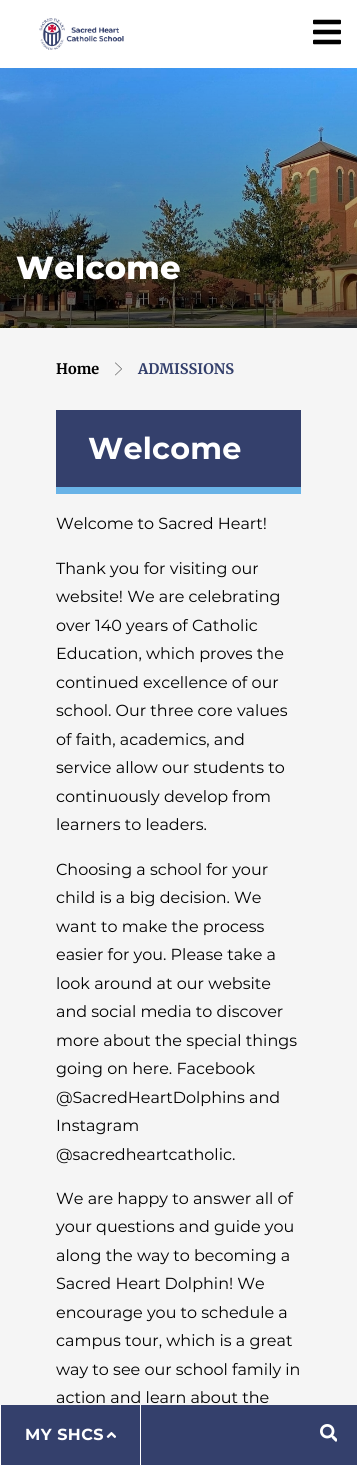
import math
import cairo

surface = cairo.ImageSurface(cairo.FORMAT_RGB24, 357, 1465)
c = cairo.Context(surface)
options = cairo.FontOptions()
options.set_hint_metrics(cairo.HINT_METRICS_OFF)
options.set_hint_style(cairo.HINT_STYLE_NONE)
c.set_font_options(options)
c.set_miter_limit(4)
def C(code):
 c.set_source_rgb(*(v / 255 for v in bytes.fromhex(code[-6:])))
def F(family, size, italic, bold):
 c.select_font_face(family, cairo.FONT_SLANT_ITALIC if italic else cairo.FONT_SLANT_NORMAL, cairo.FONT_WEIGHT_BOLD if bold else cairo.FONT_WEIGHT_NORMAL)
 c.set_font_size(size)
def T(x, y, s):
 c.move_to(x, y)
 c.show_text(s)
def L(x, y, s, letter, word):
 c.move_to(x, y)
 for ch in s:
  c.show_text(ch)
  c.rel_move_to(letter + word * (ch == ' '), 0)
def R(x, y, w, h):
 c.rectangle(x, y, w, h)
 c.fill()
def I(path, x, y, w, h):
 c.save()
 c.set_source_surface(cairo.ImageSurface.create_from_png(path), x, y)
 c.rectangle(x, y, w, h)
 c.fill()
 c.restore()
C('f5f5f5')
c.paint()
I('1.png',0,68,357,260)
F('Montserrat ExtraBold',32,0,0)
C('ffffff')
L(16,279,'Welcome',.25,0)
F('Merriweather',14.5,0,1)
C('000000')
T(56,374,'Home')
I('2.png',115,362,7,14)
C('34406c')
T(138,374,'ADMISSIONS')
R(56,410,245,77)
C('69b3e7')
R(56,487,245,7)
F('Montserrat',30.25,0,1)
C('ffffff')
L(88,459,'Welcome',.25,0)
F('Montserrat',16,0,0)
C('000000')
T(56,529,'Welcome to Sacred Heart!')
T(56,574,'Thank you for visiting our')
T(56,602,'website! We are celebrating')
T(56,631,'over 140 years of Catholic')
T(56,659,'Education, which proves the')
T(56,688,'continued excellence of our')
T(56,716,'school. Our three core values')
T(56,745,'of faith, academics, and')
T(56,773,'service allow our students to')
T(56,802,'continuously develop from')
T(56,830,'learners to leaders.')
T(56,875,'Choosing a school for your')
T(56,903,'child is a big decision. We')
T(56,932,'want to make the process')
T(56,960,'easier for you. Please take a')
T(56,989,'look around at our website')
T(56,1017,'and social media to discover')
T(56,1046,'more about the special things')
T(56,1074,'going on here. Facebook')
T(56,1103,'@SacredHeartDolphins and')
T(56,1131,'Instagram')
T(56,1160,'@sacredheartcatholic.')
T(56,1204,'We are happy to answer all of')
T(56,1232,'your questions and guide you')
T(56,1261,'along the way to becoming a')
T(56,1289,'Sacred Heart Dolphin! We')
T(56,1318,'encourage you to schedule a')
T(56,1346,'campus tour, which is a great')
T(56,1375,'way to see our school family in')
T(56,1403,'action and learn about the')
C('ffffff')
R(0,0,357,68)
I('3.png',39,18,85,32)
I('4.png',313,19,28,26)
C('34406c')
R(1,1405,356,60)
C('ffffff')
R(140,1405,1,60)
R(0,1405,1,60)
F('Montserrat',16,0,1)
L(25,1440,'MY SHCS',.5,0)
I('5.png',106,1432,10,6)
I('6.png',320,1424,17,18)
surface.write_to_png('o.png')
